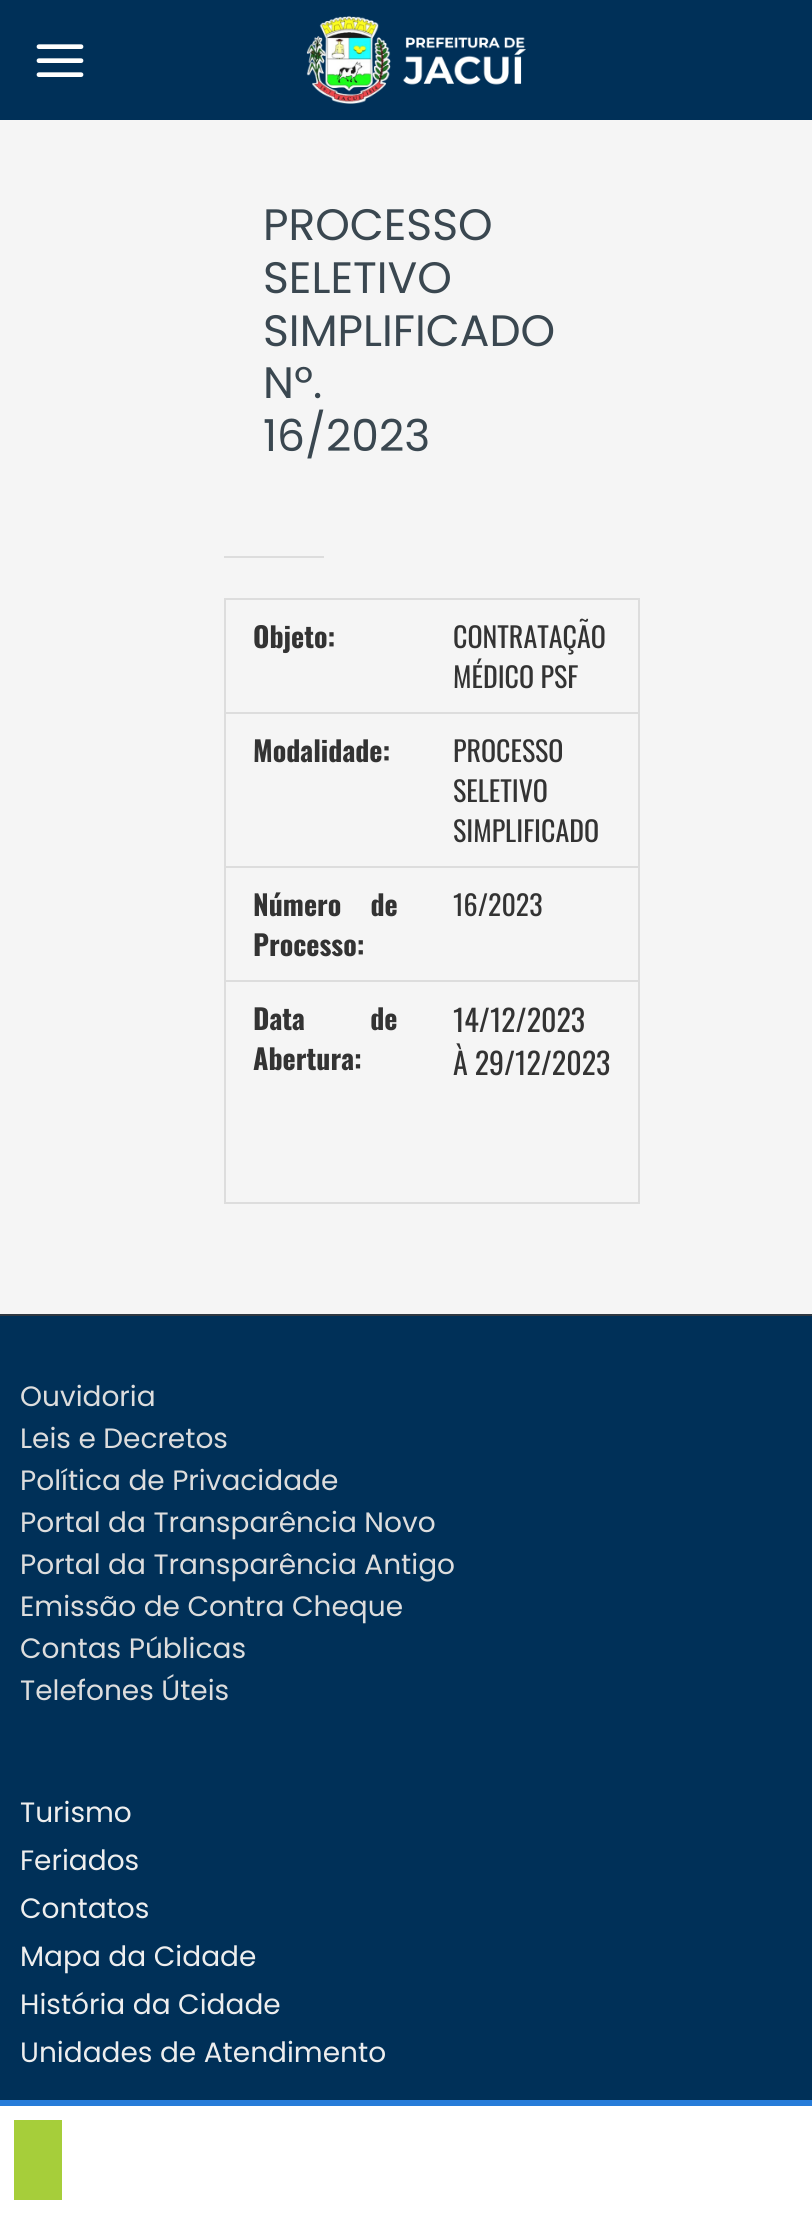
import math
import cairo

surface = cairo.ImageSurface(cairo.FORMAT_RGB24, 812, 2214)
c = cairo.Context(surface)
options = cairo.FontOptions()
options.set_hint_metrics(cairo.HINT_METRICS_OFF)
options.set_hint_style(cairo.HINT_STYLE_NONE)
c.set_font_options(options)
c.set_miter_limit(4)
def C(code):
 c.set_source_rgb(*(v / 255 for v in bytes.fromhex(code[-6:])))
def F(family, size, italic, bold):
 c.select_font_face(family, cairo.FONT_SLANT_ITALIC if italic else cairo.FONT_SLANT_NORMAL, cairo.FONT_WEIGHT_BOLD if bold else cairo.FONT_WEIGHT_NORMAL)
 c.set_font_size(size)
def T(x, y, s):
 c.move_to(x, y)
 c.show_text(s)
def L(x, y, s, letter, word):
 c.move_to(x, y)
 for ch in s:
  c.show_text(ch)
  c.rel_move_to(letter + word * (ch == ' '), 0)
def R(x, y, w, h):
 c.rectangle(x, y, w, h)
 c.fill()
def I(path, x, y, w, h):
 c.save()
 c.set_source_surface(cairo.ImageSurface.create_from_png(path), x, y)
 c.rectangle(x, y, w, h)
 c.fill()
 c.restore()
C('f5f5f5')
c.paint()
C('003058')
R(0,0,812,120)
I('1.png',36,44,48,33)
I('2.png',306,16,220,88)
F('Poppins',44,0,0)
C('3a4750')
T(263,240,'PROCESSO')
T(263,293,'SELETIVO')
T(263,346,'SIMPLIFICADO')
T(263,398,'Nº.')
T(263,451,'16/2023')
C('dddddd')
R(224,556,100,2)
c.rectangle(225,599,414,604)
c.stroke()
F('Oswald',28,0,1)
C('333333')
T(253,648,'Objeto:')
F('Oswald',28,0,0)
T(453,648,'CONTRATAÇÃO')
T(453,688,'MÉDICO PSF')
C('dddddd')
R(226,712,412,2)
F('Oswald',28,0,1)
C('333333')
T(253,762,'Modalidade:')
F('Oswald',28,0,0)
T(453,762,'PROCESSO')
T(453,802,'SELETIVO')
T(453,842,'SIMPLIFICADO')
C('dddddd')
R(226,866,412,2)
F('Oswald',28,0,1)
C('333333')
L(253,916,'Número de',0,22)
T(253,956,'Processo:')
F('Oswald',28,0,0)
T(453,916,'16/2023')
C('dddddd')
R(226,980,412,2)
F('Oswald',28,0,1)
C('333333')
L(253,1030,'Data de',0,58)
T(253,1070,'Abertura:')
F('Oswald',30,0,0)
T(453,1032,'14/12/2023')
T(453,1075,'À 29/12/2023')
C('ffffff')
R(0,2106,812,108)
C('277cd9')
R(0,2100,812,6)
C('a6ce3a')
R(14,2120,48,80)
C('003058')
R(0,1316,812,784)
C('303841')
R(0,1314,812,2)
F('Poppins',28,0,0)
C('dddddd')
T(20,1406,'Ouvidoria')
T(20,1448,'Leis e Decretos')
T(20,1490,'Política de Privacidade')
T(20,1532,'Portal da Transparência Novo')
T(20,1574,'Portal da Transparência Antigo')
T(20,1616,'Emissão de Contra Cheque')
T(20,1658,'Contas Públicas')
T(20,1700,'Telefones Úteis')
C('eeeeee')
T(20,1822,'Turismo')
T(20,1870,'Feriados')
T(20,1918,'Contatos')
T(20,1966,'Mapa da Cidade')
T(20,2014,'História da Cidade')
T(20,2062,'Unidades de Atendimento')
surface.write_to_png('o.png')
